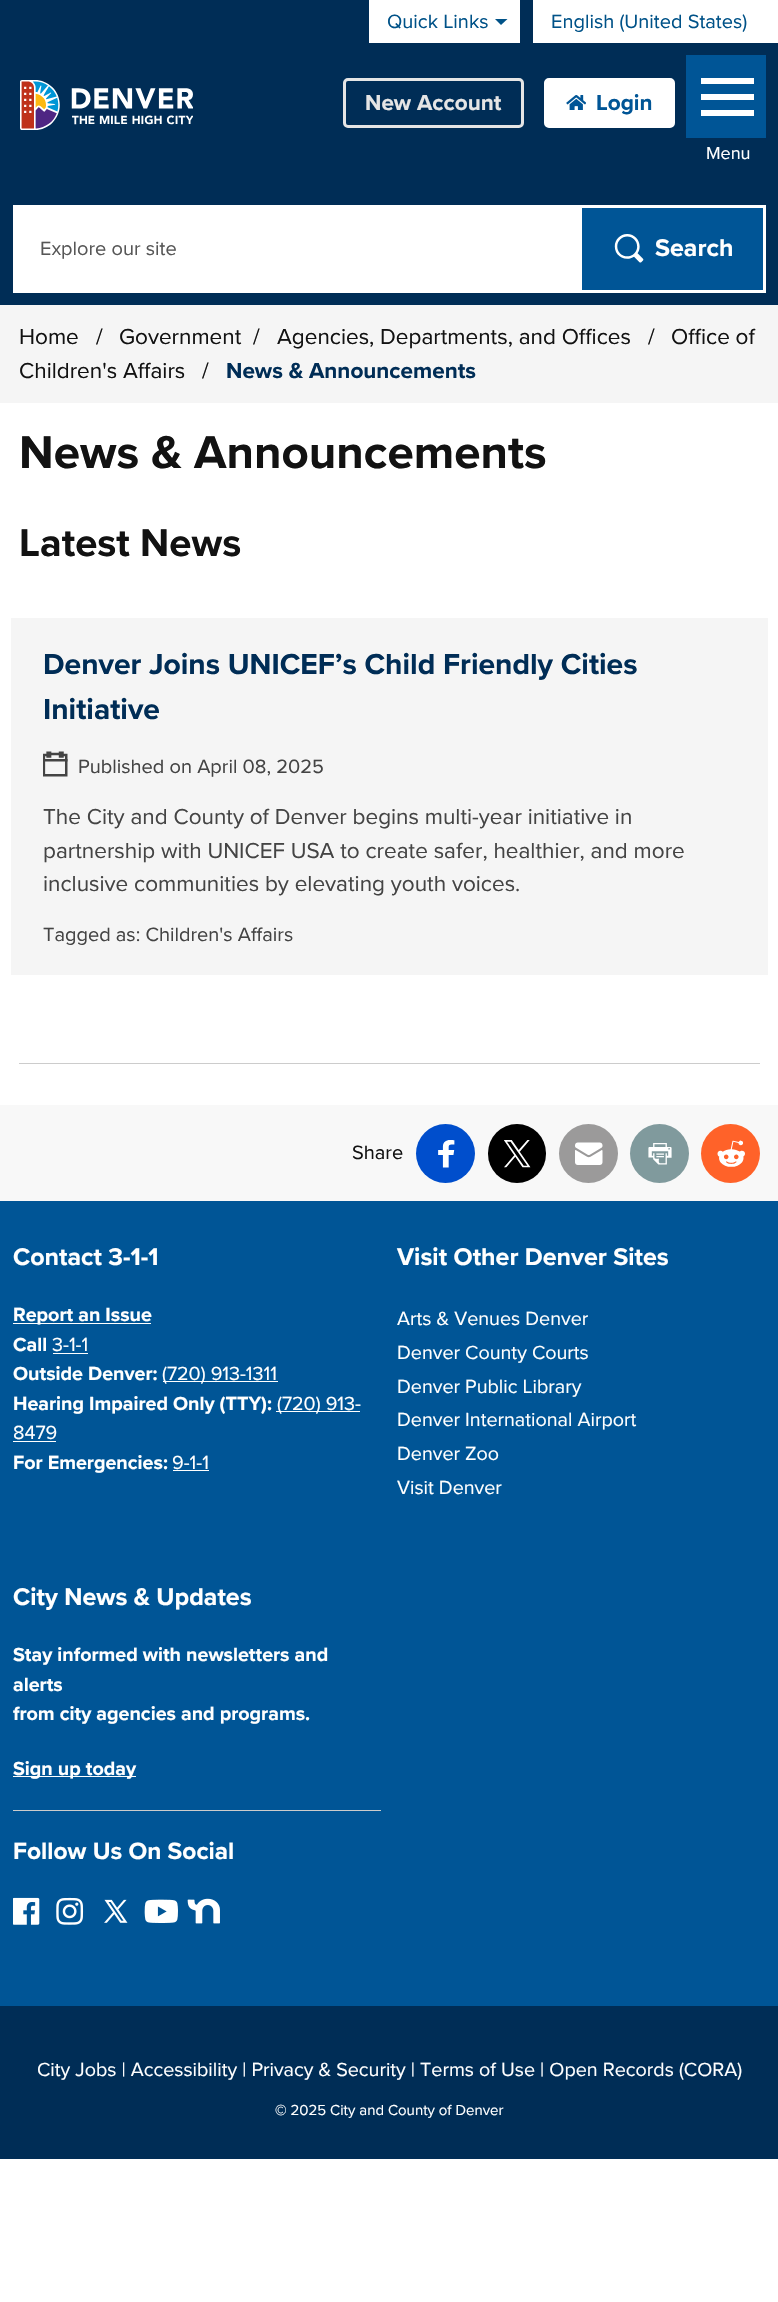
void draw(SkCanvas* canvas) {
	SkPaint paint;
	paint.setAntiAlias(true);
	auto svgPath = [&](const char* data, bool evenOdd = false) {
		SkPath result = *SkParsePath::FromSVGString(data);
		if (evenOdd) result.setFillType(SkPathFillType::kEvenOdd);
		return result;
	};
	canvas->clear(0xffffffff);
	paint.setColor(0xff002d56);
	canvas->drawRect(SkRect::MakeXYWH(0, 0, 533, 43), paint);
	paint.setColor(0xffffffff);
	canvas->drawRect(SkRect::MakeXYWH(369, 0, 151, 43), paint);
	SkFont f1(fontMgr->matchFamilyStyle("Proxima Nova", SkFontStyle::Normal()), 20);
	f1.setSubpixel(true);
	paint.setColor(0xff005288);
	canvas->drawString("Quick Links", 387, 28, f1, paint);
	canvas->drawPath(svgPath("M495 19H507.5L501 25Z"), paint);
	canvas->drawString("English (United States)", 551, 28, f1, paint);
	paint.setColor(0xff002d56);
	canvas->drawRect(SkRect::MakeXYWH(0, 43, 778, 262), paint);
	canvas->drawImageRect(SkImages::DeferredFromEncodedData(SkData::MakeFromFileName("img1.png")), SkRect::MakeXYWH(20, 80, 173, 50), SkSamplingOptions());
	paint.setStroke(true);
	paint.setStrokeWidth(3);
	paint.setColor(0xffe5e5e5);
	canvas->drawRoundRect(SkRect::MakeXYWH(344.5, 79.5, 178, 47), 3.5, 3.5, paint);
	SkFont f2(fontMgr->matchFamilyStyle("Proxima Nova", SkFontStyle::Bold()), 22.5);
	f2.setSubpixel(true);
	paint.setStroke(false);
	canvas->drawString("New Account", 365, 110, f2, paint);
	paint.setColor(0xffffffff);
	canvas->drawRoundRect(SkRect::MakeXYWH(545.5, 79.5, 128, 47), 3.5, 3.5, paint);
	paint.setStroke(true);
	canvas->drawRoundRect(SkRect::MakeXYWH(545.5, 79.5, 128, 47), 3.5, 3.5, paint);
	canvas->drawImageRect(SkImages::DeferredFromEncodedData(SkData::MakeFromFileName("img2.png")), SkRect::MakeXYWH(566, 95, 20, 15), SkSamplingOptions());
	paint.setStroke(false);
	paint.setColor(0xff005596);
	canvas->drawString("Login", 596, 110, f2, paint);
	canvas->drawRect(SkRect::MakeXYWH(686, 55, 80, 83), paint);
	paint.setColor(0xffffffff);
	canvas->drawRect(SkRect::MakeXYWH(701, 94, 53, 6), paint);
	canvas->drawRect(SkRect::MakeXYWH(701, 78, 53, 6), paint);
	canvas->drawRect(SkRect::MakeXYWH(701, 110, 53, 6), paint);
	SkFont f3(fontMgr->matchFamilyStyle("Proxima Nova", SkFontStyle::Normal()), 18);
	f3.setSubpixel(true);
	canvas->drawString("Menu", 706, 159, f3, paint);
	canvas->drawRect(SkRect::MakeXYWH(13, 205, 566, 88), paint);
	paint.setColor(0xff575757);
	canvas->drawString("Explore our site", 40, 255, f1, paint);
	paint.setColor(0xff005596);
	canvas->drawRect(SkRect::MakeXYWH(582, 208, 181, 82), paint);
	canvas->drawImageRect(SkImages::DeferredFromEncodedData(SkData::MakeFromFileName("img3.png")), SkRect::MakeXYWH(614, 234, 30, 29), SkSamplingOptions());
	paint.setStroke(true);
	paint.setColor(0xffffffff);
	canvas->drawRect(SkRect::MakeXYWH(580.5, 206.5, 184, 85), paint);
	SkFont f4(fontMgr->matchFamilyStyle("Proxima Nova", SkFontStyle::Bold()), 25);
	f4.setSubpixel(true);
	paint.setStroke(false);
	canvas->drawString("Search", 655, 256, f4, paint);
	paint.setColor(0xfff5f5f5);
	canvas->drawRect(SkRect::MakeXYWH(0, 305, 778, 98), paint);
	SkFont f5(fontMgr->matchFamilyStyle("Proxima Nova", SkFontStyle::Normal()), 22.5);
	f5.setSubpixel(true);
	paint.setColor(0xff121212);
	canvas->drawString("Home", 19, 344, f5, paint);
	canvas->drawString("/", 96, 344, f5, paint);
	canvas->drawString("Government", 119, 344, f5, paint);
	canvas->drawString("/", 253, 344, f5, paint);
	canvas->drawString("Agencies, Departments, and Offices", 277, 344, f5, paint);
	canvas->drawString("/", 648, 344, f5, paint);
	canvas->drawString("Office of", 671, 344, f5, paint);
	canvas->drawString("Children's Affairs", 19, 378, f5, paint);
	canvas->drawString("/", 202, 378, f5, paint);
	paint.setColor(0xff002d56);
	canvas->drawString("News & Announcements", 226, 378, f2, paint);
	SkFont f6(fontMgr->matchFamilyStyle("Proxima Nova", SkFontStyle::Bold()), 47.5);
	f6.setSubpixel(true);
	paint.setColor(0xff121212);
	canvas->drawString("News & Announcements", 19, 468, f6, paint);
	SkFont f7(fontMgr->matchFamilyStyle("Proxima Nova", SkFontStyle::Bold()), 40);
	f7.setSubpixel(true);
	canvas->drawString("Latest News", 19, 556, f7, paint);
	paint.setColor(0xfff5f5f5);
	canvas->drawRect(SkRect::MakeXYWH(11, 618, 757, 357), paint);
	SkFont f8(fontMgr->matchFamilyStyle("Proxima Nova", SkFontStyle::Bold()), 30);
	f8.setSubpixel(true);
	paint.setColor(0xff002d56);
	canvas->drawString("Denver Joins UNICEF’s Child Friendly Cities", 43, 674, f8, paint);
	canvas->drawString("Initiative", 43, 719, f8, paint);
	canvas->drawImageRect(SkImages::DeferredFromEncodedData(SkData::MakeFromFileName("img4.png")), SkRect::MakeXYWH(43, 751, 25, 26), SkSamplingOptions());
	paint.setColor(0xff444444);
	canvas->drawString("Published on April 08, 2025", 78, 773, f1, paint);
	canvas->drawString("The City and County of Denver begins multi-year initiative in", 43, 824, f5, paint);
	canvas->drawString("partnership with UNICEF USA to create safer, healthier, and more", 43, 858, f5, paint);
	canvas->drawString("inclusive communities by elevating youth voices.", 43, 891, f5, paint);
	canvas->drawString("Tagged as: Children's Affairs", 43, 941, f1, paint);
	paint.setColor(0xffcccccc);
	canvas->drawRect(SkRect::MakeXYWH(19, 1063, 741, 1), paint);
	paint.setColor(0xfff8f8f8);
	canvas->drawRect(SkRect::MakeXYWH(0, 1105, 778, 96), paint);
	paint.setColor(0xff121212);
	canvas->drawString("Share", 352, 1159, f1, paint);
	paint.setColor(0xff004ecc);
	canvas->drawCircle(445.5, 1153.5, 29.5, paint);
	canvas->drawImageRect(SkImages::DeferredFromEncodedData(SkData::MakeFromFileName("img5.png")), SkRect::MakeXYWH(438, 1140, 17, 28), SkSamplingOptions());
	paint.setColor(0xff000000);
	canvas->drawRoundRect(SkRect::MakeXYWH(488, 1124, 58, 59), 29, 29, paint);
	canvas->drawImageRect(SkImages::DeferredFromEncodedData(SkData::MakeFromFileName("img6.png")), SkRect::MakeXYWH(504, 1140, 27, 28), SkSamplingOptions());
	paint.setColor(0xff9b9a9a);
	canvas->drawCircle(588.5, 1153.5, 29.5, paint);
	canvas->drawImageRect(SkImages::DeferredFromEncodedData(SkData::MakeFromFileName("img7.png")), SkRect::MakeXYWH(575, 1142, 28, 23), SkSamplingOptions());
	paint.setColor(0xff809a9d);
	canvas->drawCircle(659.5, 1153.5, 29.5, paint);
	canvas->drawImageRect(SkImages::DeferredFromEncodedData(SkData::MakeFromFileName("img8.png")), SkRect::MakeXYWH(648, 1143, 24, 22), SkSamplingOptions());
	paint.setColor(0xffff6229);
	canvas->drawCircle(730.5, 1153.5, 29.5, paint);
	canvas->drawImageRect(SkImages::DeferredFromEncodedData(SkData::MakeFromFileName("img9.png")), SkRect::MakeXYWH(717, 1140, 28, 27), SkSamplingOptions());
	paint.setColor(0xff005596);
	canvas->drawRect(SkRect::MakeXYWH(0, 1201, 778, 805), paint);
	paint.setColor(0xffffffff);
	canvas->drawString("Contact 3-1-1", 13, 1265, f4, paint);
	canvas->drawRect(SkRect::MakeXYWH(13, 1323, 138, 1), paint);
	SkFont f9(fontMgr->matchFamilyStyle("Proxima Nova", SkFontStyle::Bold()), 19.7);
	f9.setSubpixel(true);
	canvas->drawString("Report an Issue", 13, 1321, f9, paint);
	canvas->drawString("Call", 13, 1351, f9, paint);
	SkFont f10(fontMgr->matchFamilyStyle("Proxima Nova", SkFontStyle::Normal()), 19.7);
	f10.setSubpixel(true);
	canvas->drawString("3-1-1", 52, 1351, f10, paint);
	canvas->drawRect(SkRect::MakeXYWH(53, 1353, 35, 1), paint);
	canvas->drawString("Outside Denver:", 13, 1380, f9, paint);
	canvas->drawRect(SkRect::MakeXYWH(163, 1381, 115, 1), paint);
	canvas->drawString("(720) 913-1311", 162, 1380, f10, paint);
	canvas->drawString("Hearing Impaired Only (TTY):", 13, 1410, f9, paint);
	canvas->drawRect(SkRect::MakeXYWH(276, 1411, 84, 1), paint);
	canvas->drawString("(720) 913-", 277, 1410, f10, paint);
	canvas->drawString("8479", 13, 1439, f10, paint);
	canvas->drawRect(SkRect::MakeXYWH(13, 1441, 43, 1), paint);
	canvas->drawString("For Emergencies:", 13, 1469, f9, paint);
	canvas->drawString("9-1-1", 172, 1469, f10, paint);
	canvas->drawRect(SkRect::MakeXYWH(173, 1470, 36, 1), paint);
	canvas->drawString("Visit Other Denver Sites", 397, 1265, f4, paint);
	canvas->drawString("Arts & Venues Denver", 397, 1325, f10, paint);
	canvas->drawString("Denver County Courts", 397, 1359, f10, paint);
	canvas->drawString("Denver Public Library", 397, 1393, f10, paint);
	canvas->drawString("Denver International Airport", 397, 1426, f10, paint);
	canvas->drawString("Denver Zoo", 397, 1460, f10, paint);
	canvas->drawString("Visit Denver", 397, 1494, f10, paint);
	canvas->drawString("City News & Updates", 13, 1605, f4, paint);
	canvas->drawString("Stay informed with newsletters and", 13, 1661, f9, paint);
	canvas->drawString("alerts", 13, 1691, f9, paint);
	canvas->save();
	canvas->clipRect(SkRect::MakeXYWH(13, 1214, 753, 780));
	canvas->drawString("from city agencies and programs.", 13, 1720, f9, paint);
	canvas->restore();
	canvas->drawRect(SkRect::MakeXYWH(13, 1776, 123, 1), paint);
	canvas->drawString("Sign up today", 13, 1775, f9, paint);
	paint.setColor(0xffcccccc);
	canvas->drawRect(SkRect::MakeXYWH(13, 1810, 368, 1), paint);
	SkFont f11(fontMgr->matchFamilyStyle("Proxima Nova", SkFontStyle::Bold()), 24.5);
	f11.setSubpixel(true);
	paint.setColor(0xffffffff);
	canvas->drawString("Follow Us On Social", 13, 1859, f11, paint);
	canvas->drawImageRect(SkImages::DeferredFromEncodedData(SkData::MakeFromFileName("img10.png")), SkRect::MakeXYWH(13, 1897, 27, 28), SkSamplingOptions());
	canvas->drawImageRect(SkImages::DeferredFromEncodedData(SkData::MakeFromFileName("img11.png")), SkRect::MakeXYWH(56, 1897, 28, 28), SkSamplingOptions());
	canvas->drawImageRect(SkImages::DeferredFromEncodedData(SkData::MakeFromFileName("img12.png")), SkRect::MakeXYWH(104, 1899, 24, 24), SkSamplingOptions());
	canvas->drawImageRect(SkImages::DeferredFromEncodedData(SkData::MakeFromFileName("img13.png")), SkRect::MakeXYWH(144, 1899, 34, 24), SkSamplingOptions());
	canvas->drawImageRect(SkImages::DeferredFromEncodedData(SkData::MakeFromFileName("img14.png")), SkRect::MakeXYWH(187, 1898, 33, 26), SkSamplingOptions());
	paint.setColor(0xff002d56);
	canvas->drawRect(SkRect::MakeXYWH(0, 2006, 778, 153), paint);
	paint.setColor(0xffffffff);
	canvas->drawString("City Jobs | Accessibility | Privacy & Security | Terms of Use | Open Records (CORA)", 37, 2076, f10, paint);
	SkFont f12(fontMgr->matchFamilyStyle("Proxima Nova", SkFontStyle::Normal()), 15);
	f12.setSubpixel(true);
	canvas->drawString("© 2025 City and County of Denver", 275, 2115, f12, paint);
}
